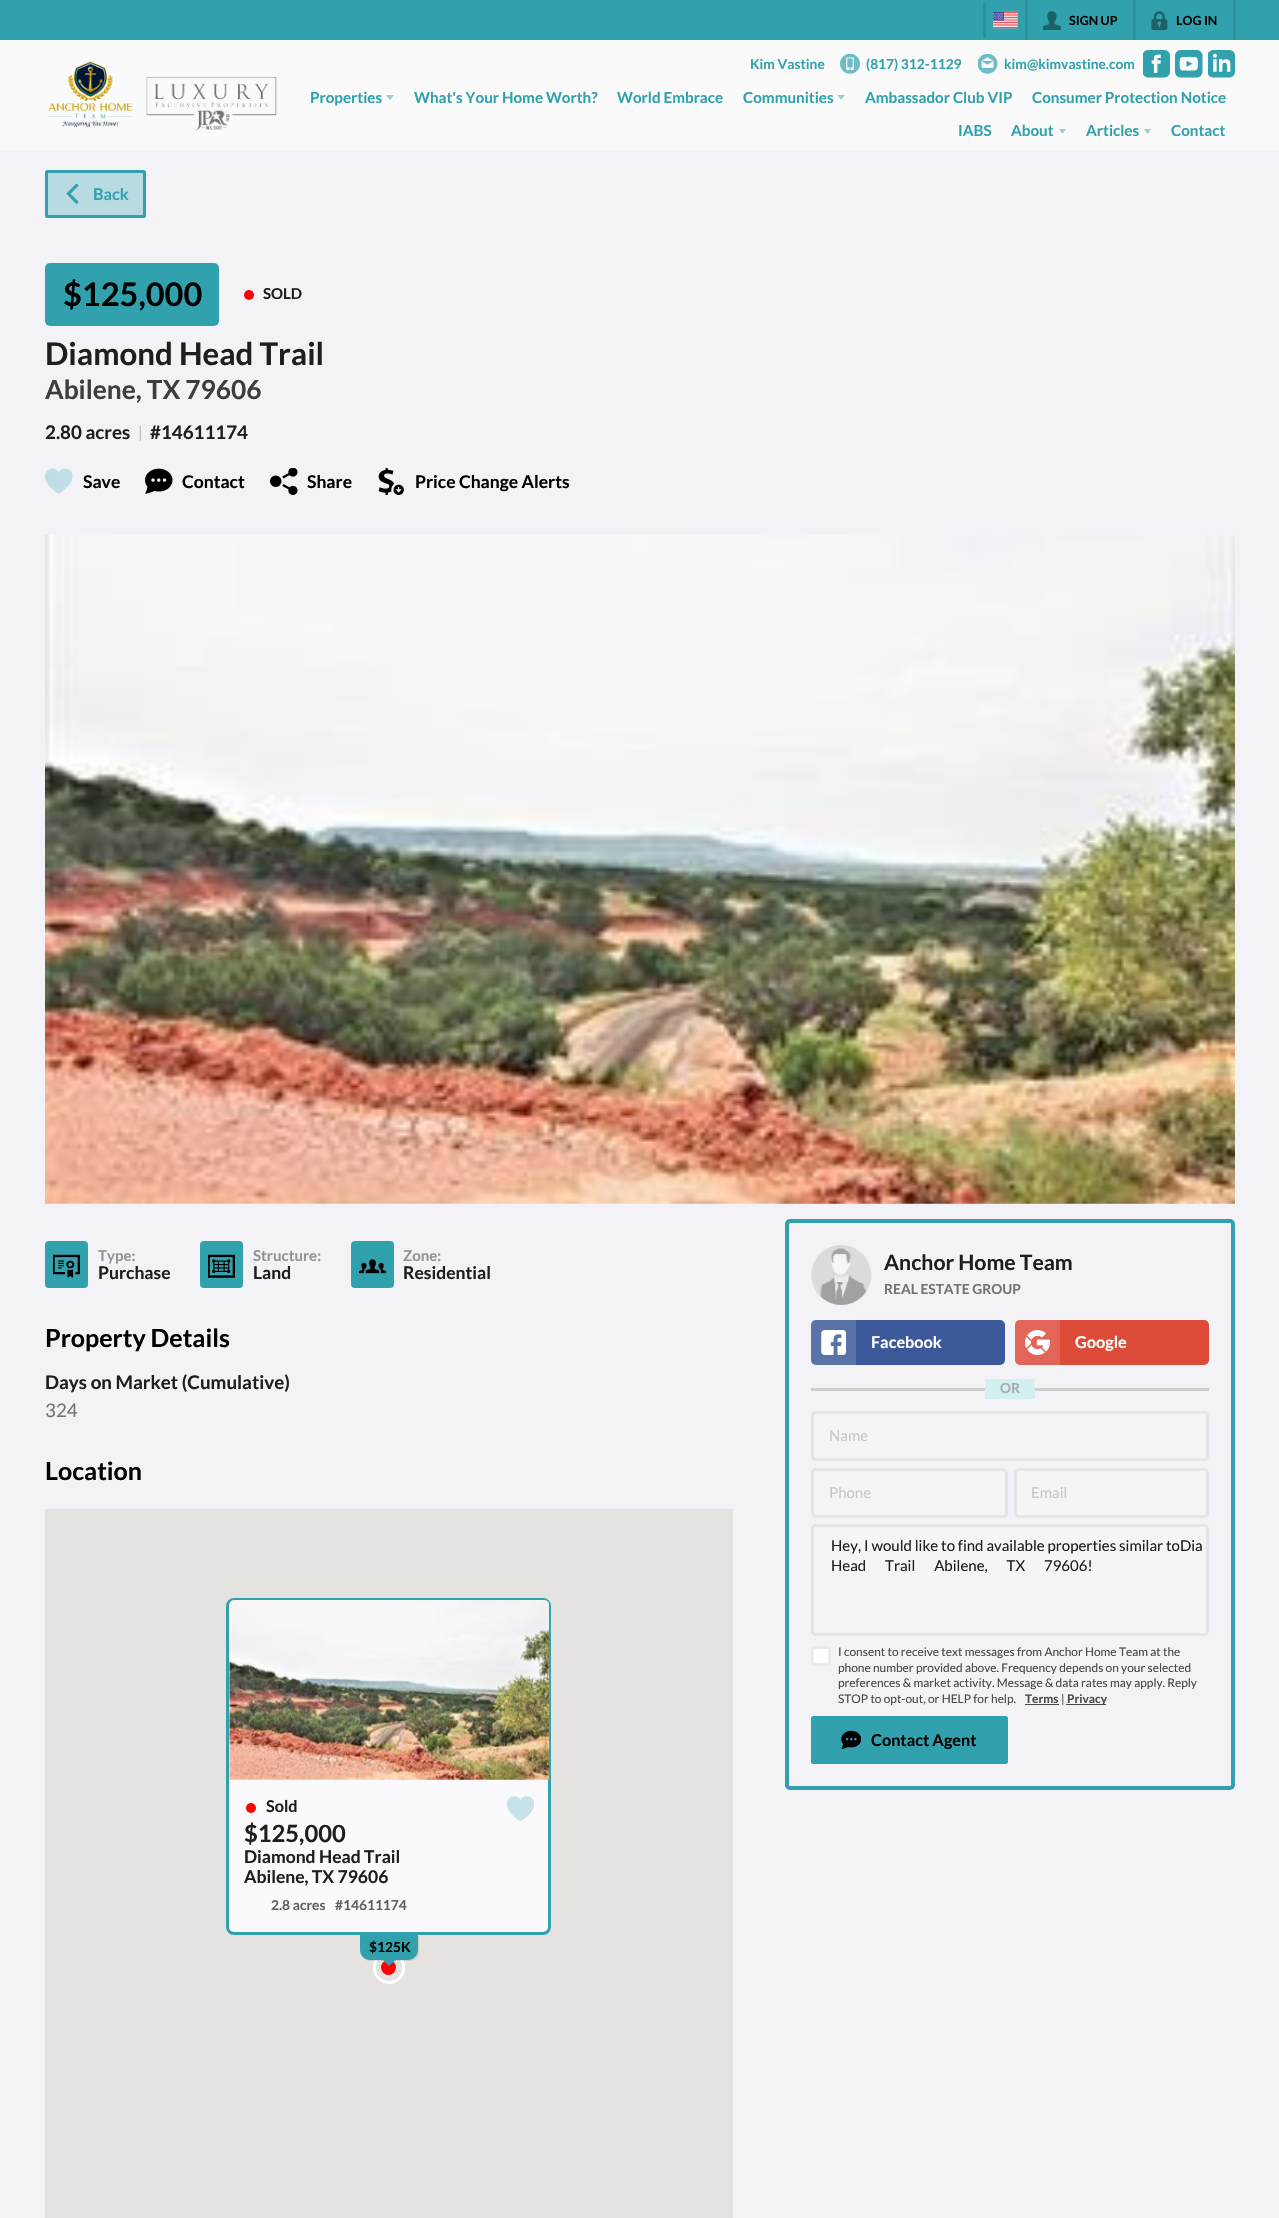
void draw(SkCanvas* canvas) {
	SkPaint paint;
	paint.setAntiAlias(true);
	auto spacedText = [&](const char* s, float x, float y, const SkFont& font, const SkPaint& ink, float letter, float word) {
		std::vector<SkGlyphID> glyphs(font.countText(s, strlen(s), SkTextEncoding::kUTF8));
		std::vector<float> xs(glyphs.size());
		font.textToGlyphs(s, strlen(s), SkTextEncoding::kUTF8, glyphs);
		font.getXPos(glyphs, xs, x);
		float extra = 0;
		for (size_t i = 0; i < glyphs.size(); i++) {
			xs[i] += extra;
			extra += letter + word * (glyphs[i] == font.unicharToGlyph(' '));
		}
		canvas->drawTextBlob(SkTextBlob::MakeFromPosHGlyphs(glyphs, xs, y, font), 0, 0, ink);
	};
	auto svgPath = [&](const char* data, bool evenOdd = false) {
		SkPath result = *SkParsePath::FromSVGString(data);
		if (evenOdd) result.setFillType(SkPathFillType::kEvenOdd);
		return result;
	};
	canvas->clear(0xfff2f2f7);
	paint.setColor(0xff31a1ae);
	canvas->drawRect(SkRect::MakeXYWH(0, 0, 1279, 40), paint);
	paint.setColor(0xff2c919d);
	canvas->drawRect(SkRect::MakeXYWH(983, 3, 3, 35), paint);
	canvas->drawImageRect(SkImages::DeferredFromEncodedData(SkData::MakeFromFileName("img1.png")), SkRect::MakeXYWH(993, 11, 25, 18), SkSamplingOptions());
	canvas->drawRect(SkRect::MakeXYWH(1233, 0, 3, 40), paint);
	canvas->drawRect(SkRect::MakeXYWH(1025, 0, 3, 40), paint);
	canvas->drawImageRect(SkImages::DeferredFromEncodedData(SkData::MakeFromFileName("img2.png")), SkRect::MakeXYWH(1043, 11, 18, 19), SkSamplingOptions());
	SkFont f1(fontMgr->matchFamilyStyle("Lato", SkFontStyle::Bold()), 12.5);
	f1.setSubpixel(true);
	paint.setColor(0xff000000);
	canvas->drawString("SIGN UP", 1069, 25, f1, paint);
	paint.setColor(0xff2c919d);
	canvas->drawRect(SkRect::MakeXYWH(1133, 0, 3, 40), paint);
	canvas->drawImageRect(SkImages::DeferredFromEncodedData(SkData::MakeFromFileName("img3.png")), SkRect::MakeXYWH(1151, 11, 17, 19), SkSamplingOptions());
	paint.setColor(0xff000000);
	canvas->drawString("LOG IN", 1176, 25, f1, paint);
	paint.setColor(0xfffafafa);
	canvas->drawRect(SkRect::MakeXYWH(0, 40, 1279, 110), paint);
	canvas->drawImageRect(SkImages::DeferredFromEncodedData(SkData::MakeFromFileName("img4.png")), SkRect::MakeXYWH(48, 61, 229, 70), SkSamplingOptions());
	SkFont f2(fontMgr->matchFamilyStyle("Lato", SkFontStyle::Bold()), 13.75);
	f2.setSubpixel(true);
	paint.setColor(0xff31a1ae);
	canvas->drawString("Kim Vastine", 750, 69, f2, paint);
	canvas->drawImageRect(SkImages::DeferredFromEncodedData(SkData::MakeFromFileName("img5.png")), SkRect::MakeXYWH(840, 54, 20, 20), SkSamplingOptions());
	canvas->drawString("(817) 312-1129", 866, 69, f2, paint);
	canvas->drawImageRect(SkImages::DeferredFromEncodedData(SkData::MakeFromFileName("img6.png")), SkRect::MakeXYWH(978, 54, 20, 20), SkSamplingOptions());
	canvas->drawString("kim@kimvastine.com", 1004, 69, f2, paint);
	canvas->drawImageRect(SkImages::DeferredFromEncodedData(SkData::MakeFromFileName("img7.png")), SkRect::MakeXYWH(1143, 50, 27, 28), SkSamplingOptions());
	canvas->drawImageRect(SkImages::DeferredFromEncodedData(SkData::MakeFromFileName("img8.png")), SkRect::MakeXYWH(1175, 50, 28, 28), SkSamplingOptions());
	canvas->drawImageRect(SkImages::DeferredFromEncodedData(SkData::MakeFromFileName("img9.png")), SkRect::MakeXYWH(1208, 50, 27, 28), SkSamplingOptions());
	SkFont f3(fontMgr->matchFamilyStyle("Lato", SkFontStyle::Bold()), 15.2);
	f3.setSubpixel(true);
	canvas->drawString("Properties", 310, 103, f3, paint);
	paint.setColor(0xff96ced4);
	canvas->drawPath(svgPath("M386 95H394L390 100Z"), paint);
	paint.setColor(0xff31a1ae);
	canvas->drawString("What's Your Home Worth?", 414, 103, f3, paint);
	canvas->drawString("World Embrace", 617, 103, f3, paint);
	canvas->drawString("Communities", 743, 103, f3, paint);
	paint.setColor(0xff96ced4);
	canvas->drawPath(svgPath("M837.5 95H845L841 100Z"), paint);
	paint.setColor(0xff31a1ae);
	canvas->drawString("Ambassador Club VIP", 865, 103, f3, paint);
	canvas->drawString("Consumer Protection Notice", 1032, 103, f3, paint);
	canvas->drawString("IABS", 958, 136, f3, paint);
	canvas->drawString("About", 1011, 136, f3, paint);
	paint.setColor(0xff96ced4);
	canvas->drawPath(svgPath("M1059 129H1066L1062.5 134Z"), paint);
	paint.setColor(0xff31a1ae);
	canvas->drawString("Articles", 1086, 136, f3, paint);
	paint.setColor(0xff96ced4);
	canvas->drawPath(svgPath("M1144 129H1151L1147.5 134Z"), paint);
	paint.setColor(0xff31a1ae);
	canvas->drawString("Contact", 1171, 136, f3, paint);
	paint.setColor(0xffb8dae1);
	canvas->drawRoundRect(SkRect::MakeXYWH(46.5, 171.5, 98, 45), 1, 1, paint);
	paint.setStroke(true);
	paint.setStrokeWidth(3);
	paint.setColor(0xff31a1ae);
	canvas->drawRoundRect(SkRect::MakeXYWH(46.5, 171.5, 98, 45), 1, 1, paint);
	canvas->drawImageRect(SkImages::DeferredFromEncodedData(SkData::MakeFromFileName("img10.png")), SkRect::MakeXYWH(66, 184, 13, 20), SkSamplingOptions());
	SkFont f4(fontMgr->matchFamilyStyle("Lato", SkFontStyle::Bold()), 16.25);
	f4.setSubpixel(true);
	paint.setStroke(false);
	canvas->drawString("Back", 93, 200, f4, paint);
	canvas->drawRoundRect(SkRect::MakeXYWH(45, 263, 174, 63), 5, 5, paint);
	SkFont f5(fontMgr->matchFamilyStyle("Lato", SkFontStyle::Bold()), 32.5);
	f5.setSubpixel(true);
	paint.setColor(0xff000000);
	canvas->drawString("$125,000", 63, 306, f5, paint);
	paint.setColor(0xffff0000);
	canvas->drawCircle(249, 295, 5, paint);
	SkFont f6(fontMgr->matchFamilyStyle("Lato", SkFontStyle::Bold()), 15);
	f6.setSubpixel(true);
	paint.setColor(0xff1e1e1e);
	canvas->drawString("SOLD", 263, 299, f6, paint);
	SkFont f7(fontMgr->matchFamilyStyle("Lato", SkFontStyle::Bold()), 31.25);
	f7.setSubpixel(true);
	canvas->drawString("Diamond Head Trail", 45, 365, f7, paint);
	SkFont f8(fontMgr->matchFamilyStyle("Lato", SkFontStyle::Bold()), 26.25);
	f8.setSubpixel(true);
	paint.setColor(0xff3d3d3e);
	canvas->drawString("Abilene, TX 79606", 45, 399, f8, paint);
	SkFont f9(fontMgr->matchFamilyStyle("Lato", SkFontStyle::Bold()), 18.75);
	f9.setSubpixel(true);
	paint.setColor(0xff1e1e1e);
	canvas->drawString("2.80 acres", 45, 439, f9, paint);
	SkFont f10(fontMgr->matchFamilyStyle("Lato", SkFontStyle::Normal()), 16);
	f10.setSubpixel(true);
	paint.setColor(0xffbdbdc1);
	canvas->drawString("|", 138, 438, f10, paint);
	paint.setColor(0xff1e1e1e);
	canvas->drawString("#14611174", 150, 439, f9, paint);
	canvas->drawImageRect(SkImages::DeferredFromEncodedData(SkData::MakeFromFileName("img11.png")), SkRect::MakeXYWH(45, 468, 28, 26), SkSamplingOptions());
	SkFont f11(fontMgr->matchFamilyStyle("Lato", SkFontStyle::Bold()), 17.5);
	f11.setSubpixel(true);
	paint.setColor(0xff000000);
	canvas->drawString("Save", 83, 488, f11, paint);
	canvas->drawImageRect(SkImages::DeferredFromEncodedData(SkData::MakeFromFileName("img12.png")), SkRect::MakeXYWH(145, 468, 28, 26), SkSamplingOptions());
	canvas->drawString("Contact", 182, 488, f11, paint);
	canvas->drawImageRect(SkImages::DeferredFromEncodedData(SkData::MakeFromFileName("img13.png")), SkRect::MakeXYWH(270, 468, 28, 27), SkSamplingOptions());
	canvas->drawString("Share", 307, 488, f11, paint);
	canvas->drawImageRect(SkImages::DeferredFromEncodedData(SkData::MakeFromFileName("img14.png")), SkRect::MakeXYWH(378, 468, 26, 27), SkSamplingOptions());
	canvas->drawString("Price Change Alerts", 415, 488, f11, paint);
	canvas->drawImageRect(SkImages::DeferredFromEncodedData(SkData::MakeFromFileName("img15.png")), SkRect::MakeXYWH(45, 535, 1190, 669), SkSamplingOptions());
	paint.setColor(0xff31a1ae);
	canvas->drawRoundRect(SkRect::MakeXYWH(45, 1241, 43, 47), 4, 4, paint);
	canvas->drawImageRect(SkImages::DeferredFromEncodedData(SkData::MakeFromFileName("img16.png")), SkRect::MakeXYWH(53, 1254, 27, 24), SkSamplingOptions());
	paint.setColor(0xff939395);
	canvas->drawString("Type:", 98, 1261, f6, paint);
	paint.setColor(0xff1e1e1e);
	canvas->drawString("Purchase", 98, 1279, f11, paint);
	paint.setColor(0xff31a1ae);
	canvas->drawRoundRect(SkRect::MakeXYWH(200, 1241, 43, 47), 4, 4, paint);
	canvas->drawImageRect(SkImages::DeferredFromEncodedData(SkData::MakeFromFileName("img17.png")), SkRect::MakeXYWH(208, 1254, 27, 24), SkSamplingOptions());
	paint.setColor(0xff939395);
	canvas->drawString("Structure:", 253, 1261, f6, paint);
	paint.setColor(0xff1e1e1e);
	canvas->drawString("Land", 253, 1279, f11, paint);
	paint.setColor(0xff31a1ae);
	canvas->drawRoundRect(SkRect::MakeXYWH(351, 1241, 43, 47), 4, 4, paint);
	canvas->drawImageRect(SkImages::DeferredFromEncodedData(SkData::MakeFromFileName("img18.png")), SkRect::MakeXYWH(359, 1259, 27, 15), SkSamplingOptions());
	paint.setColor(0xff939395);
	canvas->drawString("Zone:", 403, 1261, f6, paint);
	paint.setColor(0xff1e1e1e);
	canvas->drawString("Residential", 403, 1279, f11, paint);
	SkFont f12(fontMgr->matchFamilyStyle("Lato", SkFontStyle::Bold()), 25);
	f12.setSubpixel(true);
	paint.setColor(0xff000000);
	canvas->drawString("Property Details", 45, 1347, f12, paint);
	paint.setColor(0xff1e1e1e);
	canvas->drawString("Days on Market (Cumulative)", 45, 1389, f9, paint);
	SkFont f13(fontMgr->matchFamilyStyle("Lato", SkFontStyle::Normal()), 18.75);
	f13.setSubpixel(true);
	paint.setColor(0xff737375);
	canvas->drawString("324", 45, 1417, f13, paint);
	paint.setColor(0xff000000);
	canvas->drawString("Location", 45, 1480, f12, paint);
	paint.setColor(0xffe5e3df);
	canvas->drawRect(SkRect::MakeXYWH(45, 1509, 688, 709), paint);
	paint.setColor(0xfffafafc);
	canvas->drawRoundRect(SkRect::MakeXYWH(227.5, 1599.5, 322, 334), 6.5, 6.5, paint);
	paint.setStroke(true);
	paint.setColor(0xff31a1ae);
	canvas->drawRoundRect(SkRect::MakeXYWH(227.5, 1599.5, 322, 334), 6.5, 6.5, paint);
	canvas->drawImageRect(SkImages::DeferredFromEncodedData(SkData::MakeFromFileName("img19.png")), SkRect::MakeXYWH(229, 1600, 321, 180), SkSamplingOptions());
	paint.setStroke(false);
	paint.setColor(0xffff0000);
	canvas->drawCircle(251, 1808, 5, paint);
	paint.setColor(0xff1e1e1e);
	canvas->drawString("Sold", 266, 1812, f4, paint);
	SkFont f14(fontMgr->matchFamilyStyle("Lato", SkFontStyle::Bold()), 23.75);
	f14.setSubpixel(true);
	canvas->drawString("$125,000", 244, 1842, f14, paint);
	canvas->drawString("Diamond Head Trail", 244, 1863, f11, paint);
	canvas->drawString("Abilene, TX 79606", 244, 1883, f11, paint);
	canvas->drawImageRect(SkImages::DeferredFromEncodedData(SkData::MakeFromFileName("img20.png")), SkRect::MakeXYWH(506, 1796, 28, 26), SkSamplingOptions());
	paint.setColor(0xff606061);
	canvas->drawString("2.8 acres", 271, 1910, f2, paint);
	canvas->drawString("#14611174", 335, 1910, f2, paint);
	paint.setColor(0xffff0000);
	canvas->drawCircle(388.5, 1967.5, 7.5, paint);
	paint.setStroke(true);
	paint.setColor(0xffffffff);
	canvas->drawRoundRect(SkRect::MakeXYWH(374.5, 1952.5, 29, 30), 14.5, 14.5, paint);
	paint.setStroke(false);
	paint.setColor(0x1a000000);
	canvas->drawPath(svgPath("M362 1955C363 1959 367 1961 371 1961H409C415 1961 419 1957 419 1951V1936H418V1950C418 1956 414 1960 408 1960H370C367 1960 364 1958 362 1955Z"), paint);
	paint.setColor(0xff31a1ae);
	canvas->drawPath(svgPath("M360 1935H418V1950C418 1955.5 413.5 1960 408 1960H370C364.5 1960 360 1955.5 360 1950Z"), paint);
	paint.setColor(0xff000000);
	canvas->drawString("$125K", 369, 1952, f2, paint);
	paint.setColor(0xff31a1ae);
	canvas->drawPath(svgPath("M383 1960H395.5L389 1966Z"), paint);
	paint.setStroke(true);
	paint.setStrokeWidth(4);
	canvas->drawRoundRect(SkRect::MakeXYWH(787, 1221, 446, 567), 3, 3, paint);
	canvas->drawImageRect(SkImages::DeferredFromEncodedData(SkData::MakeFromFileName("img21.png")), SkRect::MakeXYWH(811, 1245, 61, 60), SkSamplingOptions());
	SkFont f15(fontMgr->matchFamilyStyle("Lato", SkFontStyle::Bold()), 21.25);
	f15.setSubpixel(true);
	paint.setStroke(false);
	paint.setColor(0xff1e1e1e);
	canvas->drawString("Anchor Home Team", 884, 1270, f15, paint);
	paint.setColor(0xff737375);
	canvas->drawString("REAL ESTATE GROUP", 884, 1294, f2, paint);
	paint.setColor(0xff3b5998);
	canvas->drawRoundRect(SkRect::MakeXYWH(811, 1320, 194, 45), 5, 5, paint);
	paint.setColor(0x26ffffff);
	canvas->drawPath(svgPath("M816 1320H856V1365H816C813 1365 811 1363 811 1360V1325C811 1322 813 1320 816 1320Z"), paint);
	canvas->drawImageRect(SkImages::DeferredFromEncodedData(SkData::MakeFromFileName("img22.png")), SkRect::MakeXYWH(821, 1330, 25, 25), SkSamplingOptions());
	paint.setColor(0xffffffff);
	canvas->drawString("Facebook", 871, 1348, f4, paint);
	paint.setColor(0xffdd4b39);
	canvas->drawRoundRect(SkRect::MakeXYWH(1015, 1320, 194, 45), 5, 5, paint);
	paint.setColor(0x26ffffff);
	canvas->drawPath(svgPath("M1020 1320H1060V1365H1020C1017 1365 1015 1363 1015 1360V1325C1015 1322 1017 1320 1020 1320Z"), paint);
	canvas->drawImageRect(SkImages::DeferredFromEncodedData(SkData::MakeFromFileName("img23.png")), SkRect::MakeXYWH(1025, 1330, 25, 25), SkSamplingOptions());
	paint.setColor(0xffffffff);
	canvas->drawString("Google", 1075, 1348, f4, paint);
	paint.setColor(0xffceced2);
	canvas->drawRect(SkRect::MakeXYWH(811, 1388, 398, 3), paint);
	paint.setColor(0xffd2eff2);
	canvas->drawRect(SkRect::MakeXYWH(985, 1379, 50, 20), paint);
	paint.setColor(0xffaaaaaa);
	canvas->drawString("OR", 1000, 1393, f2, paint);
	paint.setColor(0xfff5f5f5);
	canvas->drawRoundRect(SkRect::MakeXYWH(812.5, 1412.5, 395, 47), 3.5, 3.5, paint);
	paint.setStroke(true);
	paint.setStrokeWidth(3);
	paint.setColor(0xffe5e5e5);
	canvas->drawRoundRect(SkRect::MakeXYWH(812.5, 1412.5, 395, 47), 3.5, 3.5, paint);
	SkFont f16(fontMgr->matchFamilyStyle("Lato", SkFontStyle::Normal()), 15);
	f16.setSubpixel(true);
	paint.setStroke(false);
	paint.setColor(0xffc8c8c8);
	canvas->drawString("Name", 829, 1441, f16, paint);
	paint.setColor(0xfff5f5f5);
	canvas->drawRoundRect(SkRect::MakeXYWH(812.5, 1469.5, 194, 47), 3.5, 3.5, paint);
	paint.setStroke(true);
	paint.setColor(0xffe5e5e5);
	canvas->drawRoundRect(SkRect::MakeXYWH(812.5, 1469.5, 194, 47), 3.5, 3.5, paint);
	paint.setStroke(false);
	paint.setColor(0xffc8c8c8);
	canvas->drawString("Phone", 829, 1498, f16, paint);
	paint.setColor(0xfff5f5f5);
	canvas->drawRoundRect(SkRect::MakeXYWH(1015.5, 1469.5, 192, 47), 3.5, 3.5, paint);
	paint.setStroke(true);
	paint.setColor(0xffe5e5e5);
	canvas->drawRoundRect(SkRect::MakeXYWH(1015.5, 1469.5, 192, 47), 3.5, 3.5, paint);
	paint.setStroke(false);
	paint.setColor(0xffc8c8c8);
	canvas->drawString("Email", 1031, 1498, f16, paint);
	paint.setColor(0xfff5f5f5);
	canvas->drawRoundRect(SkRect::MakeXYWH(812.5, 1525.5, 395, 109), 3.5, 3.5, paint);
	paint.setStroke(true);
	paint.setColor(0xffe5e5e5);
	canvas->drawRoundRect(SkRect::MakeXYWH(812.5, 1525.5, 395, 109), 3.5, 3.5, paint);
	paint.setStroke(false);
	paint.setColor(0xff1e1e1e);
	canvas->drawString("Hey, I would like to find available properties similar toDia", 831, 1551, f16, paint);
	spacedText("Head Trail Abilene, TX 79606!", 831, 1571, f16, paint, 0, 16);
	paint.setColor(0xffffffff);
	canvas->drawRoundRect(SkRect::MakeXYWH(811, 1646, 20, 20), 2.5, 2.5, paint);
	paint.setStroke(true);
	paint.setColor(0x14000000);
	canvas->drawRoundRect(SkRect::MakeXYWH(812.5, 1647.5, 17, 17), 1, 1, paint);
	SkFont f17(fontMgr->matchFamilyStyle("Lato", SkFontStyle::Normal()), 11.9);
	f17.setSubpixel(true);
	paint.setStroke(false);
	paint.setColor(0xff484849);
	canvas->drawString("I consent to receive text messages from Anchor Home Team at the", 838, 1656, f17, paint);
	canvas->drawString("phone number provided above. Frequency depends on your selected", 838, 1672, f17, paint);
	canvas->drawString("preferences & market activity. Message & data rates may apply. Reply", 838, 1687, f17, paint);
	canvas->drawString("STOP to opt-out, or HELP for help.", 838, 1703, f17, paint);
	SkFont f18(fontMgr->matchFamilyStyle("Lato", SkFontStyle::Bold()), 11.9);
	f18.setSubpixel(true);
	canvas->drawString("Terms", 1025, 1703, f18, paint);
	canvas->drawRect(SkRect::MakeXYWH(1025, 1704, 34, 1), paint);
	canvas->drawString("|", 1061, 1703, f17, paint);
	canvas->drawRect(SkRect::MakeXYWH(1066, 1704, 40, 1), paint);
	canvas->drawString("Privacy", 1067, 1703, f18, paint);
	paint.setColor(0xff31a1ae);
	canvas->drawRoundRect(SkRect::MakeXYWH(812.5, 1717.5, 194, 45), 1, 1, paint);
	paint.setStroke(true);
	canvas->drawRoundRect(SkRect::MakeXYWH(812.5, 1717.5, 194, 45), 1, 1, paint);
	canvas->drawImageRect(SkImages::DeferredFromEncodedData(SkData::MakeFromFileName("img24.png")), SkRect::MakeXYWH(841, 1730, 20, 20), SkSamplingOptions());
	paint.setStroke(false);
	paint.setColor(0xff000000);
	canvas->drawString("Contact Agent", 871, 1746, f4, paint);
}
